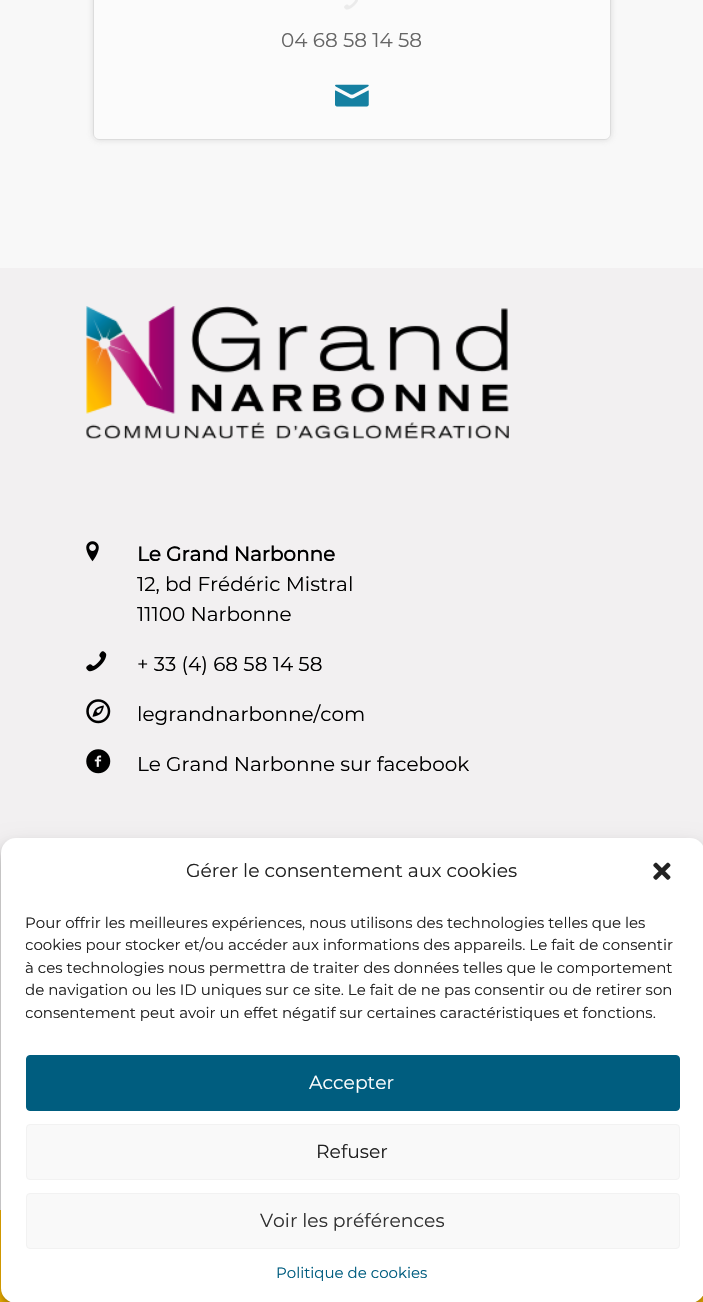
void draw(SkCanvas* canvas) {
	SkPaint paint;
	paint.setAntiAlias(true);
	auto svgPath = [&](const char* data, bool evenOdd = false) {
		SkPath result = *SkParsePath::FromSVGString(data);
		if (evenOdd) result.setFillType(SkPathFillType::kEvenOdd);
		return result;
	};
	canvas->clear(0xfff2f0f1);
	paint.setColor(0xfff8f8f8);
	canvas->drawRect(SkRect::MakeXYWH(0, 0, 703, 268), paint);
	canvas->save();
	canvas->clipPath(svgPath("M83 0H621V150H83ZM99-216H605C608.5-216 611-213.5 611-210V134C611 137.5 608.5 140 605 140H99C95.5 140 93 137.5 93 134V-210C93-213.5 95.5-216 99-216Z", true), true);
	paint.setColor(0xbfd0d0d0);
	paint.setMaskFilter(SkMaskFilter::MakeBlur(kNormal_SkBlurStyle, 3));
	canvas->drawRoundRect(SkRect::MakeXYWH(93, -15, 518, 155), 6, 6, paint);
	paint.setMaskFilter(nullptr);
	canvas->restore();
	paint.setColor(0x66ffffff);
	canvas->drawRoundRect(SkRect::MakeXYWH(93, -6, 518, 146), 6, 6, paint);
	paint.setStroke(true);
	paint.setStrokeWidth(1);
	paint.setColor(0x407e7e7e);
	canvas->drawRoundRect(SkRect::MakeXYWH(93.5, -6.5, 517, 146), 5.5, 5.5, paint);
	canvas->drawImageRect(SkImages::DeferredFromEncodedData(SkData::MakeFromFileName("img1.png")), SkRect::MakeXYWH(344, 0, 14, 10), SkSamplingOptions());
	SkFont f1(fontMgr->matchFamilyStyle("Montserrat", SkFontStyle(100, SkFontStyle::kNormal_Width, SkFontStyle::kUpright_Slant)), 20);
	f1.setSubpixel(true);
	paint.setStroke(false);
	paint.setColor(0xff666666);
	canvas->drawString("04 68 58 14 58", 281, 47, f1, paint);
	canvas->drawImageRect(SkImages::DeferredFromEncodedData(SkData::MakeFromFileName("img2.png")), SkRect::MakeXYWH(335, 84, 34, 23), SkSamplingOptions());
	canvas->drawImageRect(SkImages::DeferredFromEncodedData(SkData::MakeFromFileName("img3.png")), SkRect::MakeXYWH(86, 306, 423, 133), SkSamplingOptions());
	canvas->drawImageRect(SkImages::DeferredFromEncodedData(SkData::MakeFromFileName("img4.png")), SkRect::MakeXYWH(86, 541, 13, 21), SkSamplingOptions());
	SkFont f2(fontMgr->matchFamilyStyle("Montserrat", SkFontStyle::Bold()), 20);
	f2.setSubpixel(true);
	paint.setColor(0xff000000);
	canvas->drawString("Le Grand Narbonne", 137, 561, f2, paint);
	canvas->drawString("12, bd Frédéric Mistral", 137, 591, f1, paint);
	canvas->drawString("11100 Narbonne", 137, 621, f1, paint);
	canvas->drawImageRect(SkImages::DeferredFromEncodedData(SkData::MakeFromFileName("img5.png")), SkRect::MakeXYWH(86, 651, 21, 21), SkSamplingOptions());
	canvas->drawString("+ 33 (4) 68 58 14 58", 137, 671, f1, paint);
	canvas->drawImageRect(SkImages::DeferredFromEncodedData(SkData::MakeFromFileName("img6.png")), SkRect::MakeXYWH(86, 699, 25, 25), SkSamplingOptions());
	canvas->drawString("legrandnarbonne/com", 137, 721, f1, paint);
	canvas->drawImageRect(SkImages::DeferredFromEncodedData(SkData::MakeFromFileName("img7.png")), SkRect::MakeXYWH(86, 749, 25, 25), SkSamplingOptions());
	canvas->drawString("Le Grand Narbonne sur facebook", 137, 771, f1, paint);
	paint.setColor(0xffffbb00);
	canvas->drawRect(SkRect::MakeXYWH(0, 1210, 703, 92), paint);
	paint.setColor(0x3b000000);
	paint.setMaskFilter(SkMaskFilter::MakeBlur(kNormal_SkBlurStyle, 4));
	canvas->drawRoundRect(SkRect::MakeXYWH(1, 845, 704, 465), 15, 15, paint);
	paint.setMaskFilter(nullptr);
	paint.setColor(0x30000000);
	paint.setMaskFilter(SkMaskFilter::MakeBlur(kNormal_SkBlurStyle, 12.5));
	canvas->drawRoundRect(SkRect::MakeXYWH(1, 850, 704, 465), 15, 15, paint);
	paint.setMaskFilter(nullptr);
	paint.setColor(0xffffffff);
	canvas->drawRoundRect(SkRect::MakeXYWH(1, 838, 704, 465), 15, 15, paint);
	SkFont f3(fontMgr->matchFamilyStyle("Montserrat", SkFontStyle(100, SkFontStyle::kNormal_Width, SkFontStyle::kUpright_Slant)), 18.75);
	f3.setSubpixel(true);
	paint.setColor(0xff222222);
	canvas->drawString("Gérer le consentement aux cookies", 186, 877, f3, paint);
	canvas->drawImageRect(SkImages::DeferredFromEncodedData(SkData::MakeFromFileName("img8.png")), SkRect::MakeXYWH(653, 862, 18, 18), SkSamplingOptions());
	SkFont f4(fontMgr->matchFamilyStyle("Montserrat", SkFontStyle(100, SkFontStyle::kNormal_Width, SkFontStyle::kUpright_Slant)), 15);
	f4.setSubpixel(true);
	canvas->drawString("Pour offrir les meilleures expériences, nous utilisons des technologies telles que les", 25, 928, f4, paint);
	canvas->save();
	canvas->clipRect(SkRect::MakeXYWH(26, 911, 654, 119));
	canvas->drawString("cookies pour stocker et/ou accéder aux informations des appareils. Le fait de consentir", 25, 950, f4, paint);
	canvas->restore();
	canvas->drawString("à ces technologies nous permettra de traiter des données telles que le comportement", 25, 973, f4, paint);
	canvas->save();
	canvas->clipRect(SkRect::MakeXYWH(26, 911, 654, 119));
	canvas->drawString("de navigation ou les ID uniques sur ce site. Le fait de ne pas consentir ou de retirer son", 25, 995, f4, paint);
	canvas->drawString("consentement peut avoir un effet négatif sur certaines caractéristiques et fonctions.", 25, 1018, f4, paint);
	canvas->restore();
	paint.setColor(0xff005d7f);
	canvas->drawRoundRect(SkRect::MakeXYWH(26.5, 1055.5, 653, 55), 3.5, 3.5, paint);
	paint.setStroke(true);
	canvas->drawRoundRect(SkRect::MakeXYWH(26.5, 1055.5, 653, 55), 3.5, 3.5, paint);
	paint.setStroke(false);
	paint.setColor(0xffffffff);
	canvas->drawString("Accepter", 309, 1089, f3, paint);
	paint.setColor(0xfff9f9f9);
	canvas->drawRoundRect(SkRect::MakeXYWH(26.5, 1124.5, 653, 55), 3.5, 3.5, paint);
	paint.setStroke(true);
	paint.setColor(0xfff2f2f2);
	canvas->drawRoundRect(SkRect::MakeXYWH(26.5, 1124.5, 653, 55), 3.5, 3.5, paint);
	paint.setStroke(false);
	paint.setColor(0xff222222);
	canvas->drawString("Refuser", 316, 1158, f3, paint);
	paint.setColor(0xfff9f9f9);
	canvas->drawRoundRect(SkRect::MakeXYWH(26.5, 1193.5, 653, 55), 3.5, 3.5, paint);
	paint.setStroke(true);
	paint.setColor(0xfff2f2f2);
	canvas->drawRoundRect(SkRect::MakeXYWH(26.5, 1193.5, 653, 55), 3.5, 3.5, paint);
	paint.setStroke(false);
	paint.setColor(0xff333333);
	canvas->drawString("Voir les préférences", 260, 1227, f3, paint);
	paint.setColor(0xff005d7f);
	canvas->drawString("Politique de cookies", 276, 1278, f4, paint);
}
